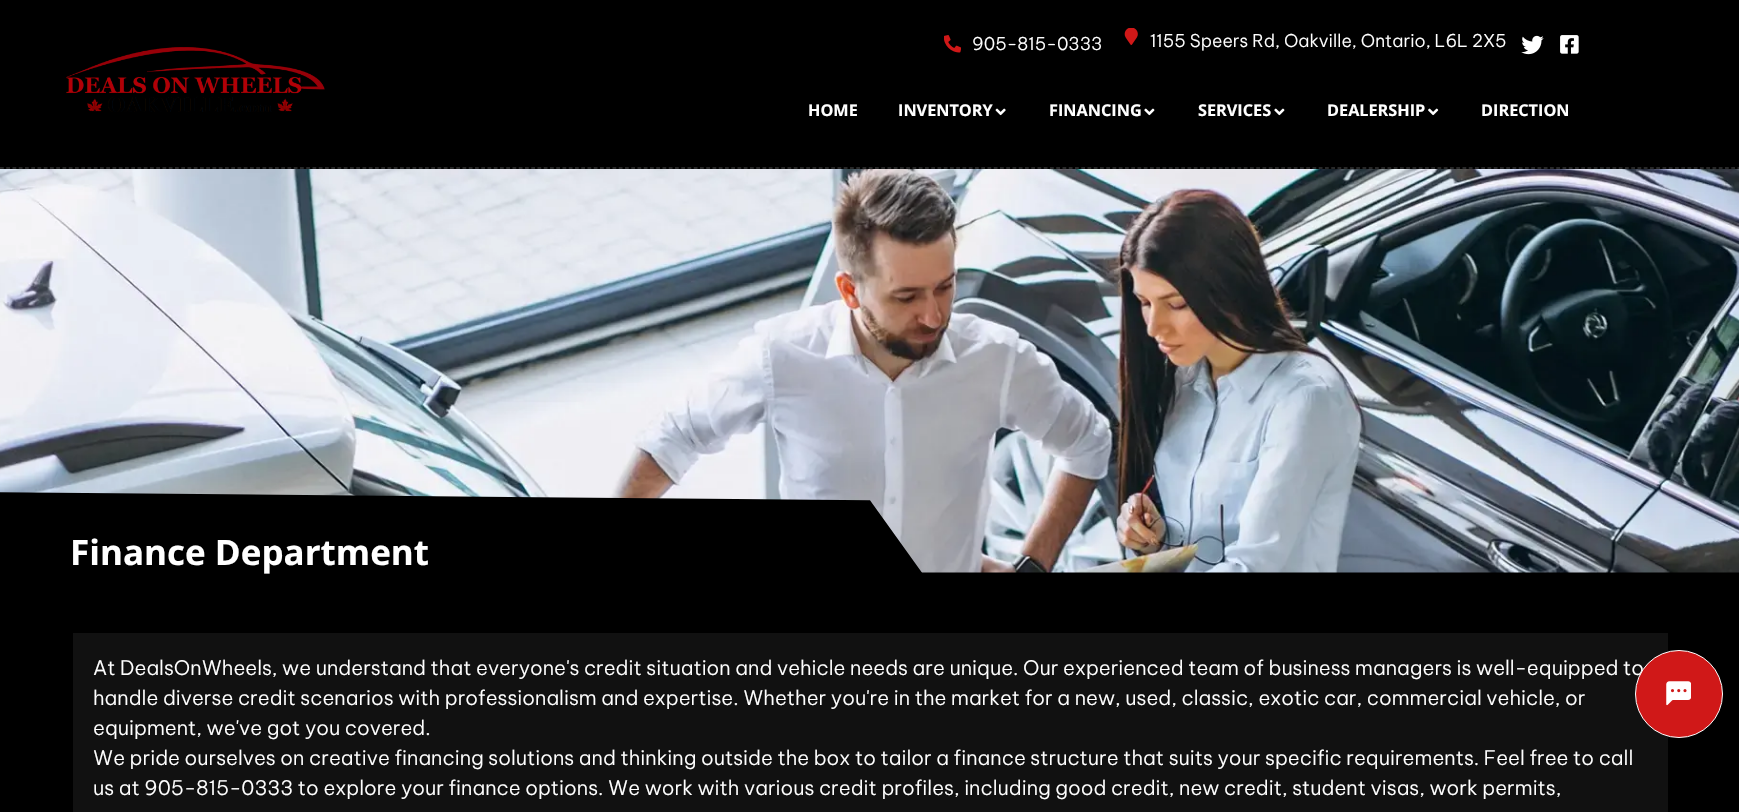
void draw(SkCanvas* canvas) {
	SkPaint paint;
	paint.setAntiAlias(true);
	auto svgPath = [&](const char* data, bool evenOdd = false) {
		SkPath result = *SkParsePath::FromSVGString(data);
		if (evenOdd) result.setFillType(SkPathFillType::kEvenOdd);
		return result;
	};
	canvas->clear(0xff000000);
	paint.setStroke(true);
	paint.setStrokeWidth(1.2);
	paint.setColor(0xff505050);
	paint.setPathEffect(SkDashPathEffect::Make({{3.75f, 2.5f}}, 0));
	canvas->drawPath(svgPath("M0 168H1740"), paint);
	paint.setPathEffect(nullptr);
	canvas->drawImageRect(SkImages::DeferredFromEncodedData(SkData::MakeFromFileName("img1.png")), SkRect::MakeXYWH(66, 47, 259, 65), SkSamplingOptions());
	canvas->drawImageRect(SkImages::DeferredFromEncodedData(SkData::MakeFromFileName("img2.png")), SkRect::MakeXYWH(944, 35, 17, 18), SkSamplingOptions());
	SkFont f1(fontMgr->matchFamilyStyle("Be Vietnam Pro", SkFontStyle(300, SkFontStyle::kNormal_Width, SkFontStyle::kUpright_Slant)), 17.5);
	f1.setSubpixel(true);
	paint.setStroke(false);
	paint.setColor(0xffffffff);
	canvas->drawString("905-815-0333", 972, 50, f1, paint);
	canvas->drawImageRect(SkImages::DeferredFromEncodedData(SkData::MakeFromFileName("img3.png")), SkRect::MakeXYWH(1124, 28, 14, 17), SkSamplingOptions());
	canvas->drawString("1155 Speers Rd, Oakville, Ontario, L6L 2X5", 1150, 47, f1, paint);
	canvas->drawImageRect(SkImages::DeferredFromEncodedData(SkData::MakeFromFileName("img4.png")), SkRect::MakeXYWH(1521, 35, 23, 20), SkSamplingOptions());
	canvas->drawImageRect(SkImages::DeferredFromEncodedData(SkData::MakeFromFileName("img5.png")), SkRect::MakeXYWH(1560, 35, 19, 19), SkSamplingOptions());
	SkFont f2(fontMgr->matchFamilyStyle("Open Sans", SkFontStyle::Bold()), 16.25);
	f2.setSubpixel(true);
	canvas->drawString("HOME", 808, 116, f2, paint);
	canvas->drawString("INVENTORY", 898, 116, f2, paint);
	canvas->drawImageRect(SkImages::DeferredFromEncodedData(SkData::MakeFromFileName("img6.png")), SkRect::MakeXYWH(995, 108, 11, 8), SkSamplingOptions());
	canvas->drawString("FINANCING", 1049, 116, f2, paint);
	canvas->drawImageRect(SkImages::DeferredFromEncodedData(SkData::MakeFromFileName("img7.png")), SkRect::MakeXYWH(1144, 108, 11, 8), SkSamplingOptions());
	canvas->drawString("SERVICES", 1198, 116, f2, paint);
	canvas->drawImageRect(SkImages::DeferredFromEncodedData(SkData::MakeFromFileName("img7.png")), SkRect::MakeXYWH(1274, 108, 11, 8), SkSamplingOptions());
	canvas->drawString("DEALERSHIP", 1327, 116, f2, paint);
	canvas->drawImageRect(SkImages::DeferredFromEncodedData(SkData::MakeFromFileName("img8.png")), SkRect::MakeXYWH(1428, 108, 11, 8), SkSamplingOptions());
	canvas->drawString("DIRECTION", 1481, 116, f2, paint);
	SkFont f3(fontMgr->matchFamilyStyle("Open Sans", SkFontStyle::Bold()), 35);
	f3.setSubpixel(true);
	canvas->drawString("Finance Department", 70, 565, f3, paint);
	canvas->drawImageRect(SkImages::DeferredFromEncodedData(SkData::MakeFromFileName("img9.png")), SkRect::MakeXYWH(0, 169, 1739, 404), SkSamplingOptions());
	paint.setColor(0xff111111);
	canvas->drawRect(SkRect::MakeXYWH(73, 633, 1595, 179), paint);
	SkFont f4(fontMgr->matchFamilyStyle("Be Vietnam Pro", SkFontStyle(300, SkFontStyle::kNormal_Width, SkFontStyle::kUpright_Slant)), 20);
	f4.setSubpixel(true);
	paint.setColor(0xffffffff);
	canvas->drawString("At DealsOnWheels, we understand that everyone's credit situation and vehicle needs are unique. Our experienced team of business managers is well-equipped to", 93, 675, f4, paint);
	canvas->drawString("handle diverse credit scenarios with professionalism and expertise. Whether you're in the market for a new, used, classic, exotic car, commercial vehicle, or", 93, 705, f4, paint);
	canvas->drawString("equipment, we've got you covered.", 93, 735, f4, paint);
	canvas->drawString("We pride ourselves on creative financing solutions and thinking outside the box to tailor a finance structure that suits your specific requirements. Feel free to call", 93, 765, f4, paint);
	canvas->drawString("us at 905-815-0333 to explore your finance options. We work with various credit profiles, including good credit, new credit, student visas, work permits,", 93, 795, f4, paint);
	paint.setColor(0xffd01818);
	canvas->drawCircle(1679, 694, 43.5, paint);
	paint.setStroke(true);
	paint.setStrokeWidth(1);
	paint.setColor(0xffffffff);
	canvas->drawCircle(1679, 694, 43.5, paint);
	canvas->drawImageRect(SkImages::DeferredFromEncodedData(SkData::MakeFromFileName("img10.png")), SkRect::MakeXYWH(1666, 681, 25, 25), SkSamplingOptions());
}
